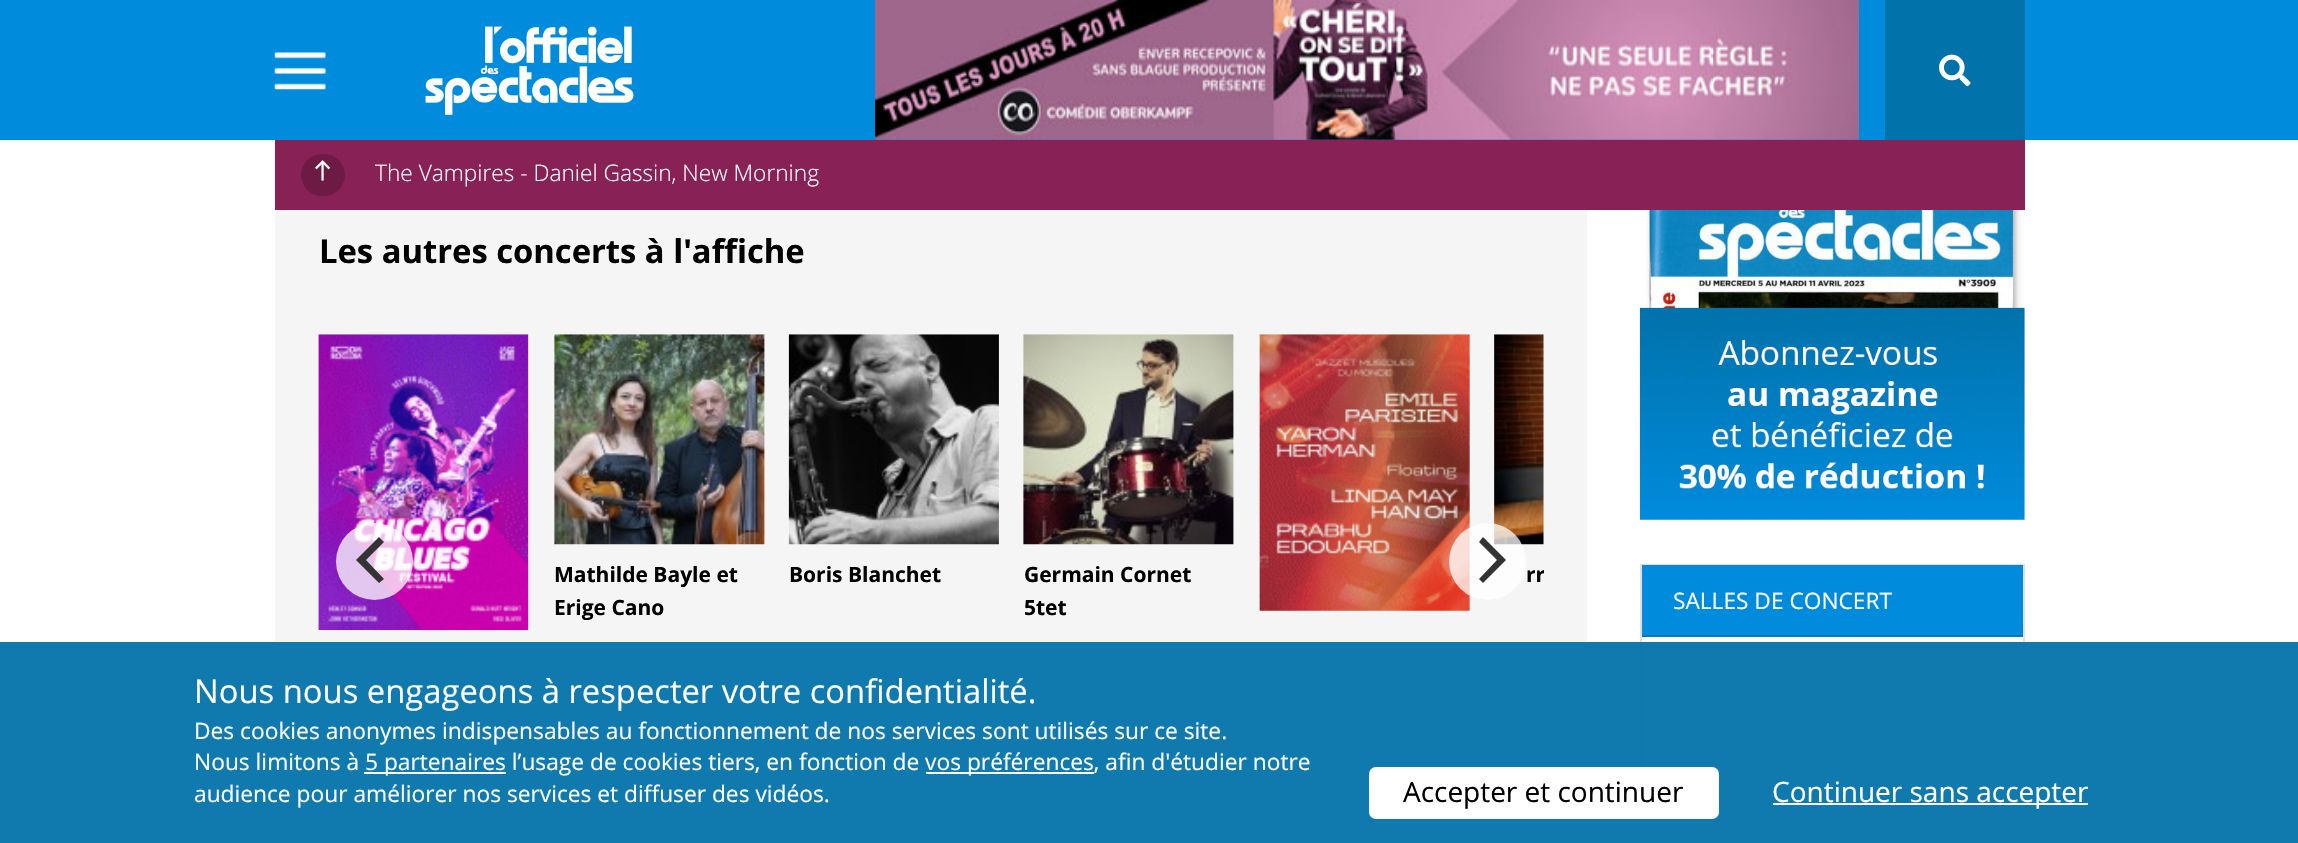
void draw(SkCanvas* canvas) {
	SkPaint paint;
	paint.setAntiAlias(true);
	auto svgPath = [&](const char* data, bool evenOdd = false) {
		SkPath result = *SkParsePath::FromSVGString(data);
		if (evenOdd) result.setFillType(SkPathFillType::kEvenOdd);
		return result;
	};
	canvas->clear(0xffffffff);
	paint.setColor(0xff008bdc);
	canvas->drawRect(SkRect::MakeXYWH(0, 0, 2298, 140), paint);
	canvas->drawImageRect(SkImages::DeferredFromEncodedData(SkData::MakeFromFileName("img1.png")), SkRect::MakeXYWH(274, 52, 52, 38), SkSamplingOptions());
	canvas->drawImageRect(SkImages::DeferredFromEncodedData(SkData::MakeFromFileName("img2.png")), SkRect::MakeXYWH(425, 26, 209, 89), SkSamplingOptions());
	canvas->drawImageRect(SkImages::DeferredFromEncodedData(SkData::MakeFromFileName("img3.png")), SkRect::MakeXYWH(875, 0, 984, 140), SkSamplingOptions());
	paint.setColor(0xff0172aa);
	canvas->drawRect(SkRect::MakeXYWH(1885, 0, 140, 140), paint);
	canvas->drawImageRect(SkImages::DeferredFromEncodedData(SkData::MakeFromFileName("img4.png")), SkRect::MakeXYWH(1939, 54, 32, 33), SkSamplingOptions());
	paint.setColor(0xff882155);
	canvas->drawRect(SkRect::MakeXYWH(275, 140, 1750, 70), paint);
	paint.setColor(0xff6d1a44);
	canvas->drawRoundRect(SkRect::MakeXYWH(301, 154, 44, 42), 21, 21, paint);
	canvas->drawImageRect(SkImages::DeferredFromEncodedData(SkData::MakeFromFileName("img5.png")), SkRect::MakeXYWH(315, 160, 15, 21), SkSamplingOptions());
	SkFont f1(fontMgr->matchFamilyStyle("Open Sans", SkFontStyle(300, SkFontStyle::kNormal_Width, SkFontStyle::kUpright_Slant)), 22.7);
	f1.setSubpixel(true);
	paint.setColor(0xffffffff);
	canvas->drawString("The Vampires - Daniel Gassin, New Morning", 375, 181, f1, paint);
	paint.setColor(0xfff5f5f5);
	canvas->drawRect(SkRect::MakeXYWH(275, 210, 1312, 633), paint);
	SkFont f2(fontMgr->matchFamilyStyle("Open Sans", SkFontStyle::Bold()), 32.75);
	f2.setSubpixel(true);
	paint.setColor(0xff000000);
	canvas->drawString("Les autres concerts à l'affiche", 319, 263, f2, paint);
	canvas->drawImageRect(SkImages::DeferredFromEncodedData(SkData::MakeFromFileName("img6.png")), SkRect::MakeXYWH(318, 334, 211, 296), SkSamplingOptions());
	paint.setColor(0xbfffffff);
	canvas->drawCircle(374.5, 561.5, 38.5, paint);
	paint.setColor(0xff333333);
	canvas->drawPath(svgPath("M356 560L379 583L384 579L366 560L384 542L379 537Z"), paint);
	canvas->drawImageRect(SkImages::DeferredFromEncodedData(SkData::MakeFromFileName("img10.png")), SkRect::MakeXYWH(1259, 334, 211, 277), SkSamplingOptions());
	canvas->drawImageRect(SkImages::DeferredFromEncodedData(SkData::MakeFromFileName("img11.png")), SkRect::MakeXYWH(1494, 334, 50, 211), SkSamplingOptions());
	paint.setColor(0xbfffffff);
	canvas->drawCircle(1487.5, 561.5, 38.5, paint);
	paint.setColor(0xff333333);
	canvas->drawPath(svgPath("M1506 560L1483 537L1479 542L1497 560L1479 579L1483 583Z"), paint);
	canvas->drawImageRect(SkImages::DeferredFromEncodedData(SkData::MakeFromFileName("img7.png")), SkRect::MakeXYWH(554, 334, 211, 211), SkSamplingOptions());
	SkFont f3(fontMgr->matchFamilyStyle("Open Sans", SkFontStyle::Bold()), 21);
	f3.setSubpixel(true);
	paint.setColor(0xff000000);
	canvas->drawString("Mathilde Bayle et", 554, 582, f3, paint);
	canvas->drawString("Erige Cano", 554, 615, f3, paint);
	canvas->drawImageRect(SkImages::DeferredFromEncodedData(SkData::MakeFromFileName("img8.png")), SkRect::MakeXYWH(788, 334, 211, 211), SkSamplingOptions());
	canvas->drawString("Boris Blanchet", 789, 582, f3, paint);
	canvas->drawImageRect(SkImages::DeferredFromEncodedData(SkData::MakeFromFileName("img9.png")), SkRect::MakeXYWH(1023, 334, 211, 211), SkSamplingOptions());
	canvas->drawString("Germain Cornet", 1024, 582, f3, paint);
	canvas->drawString("5tet", 1024, 615, f3, paint);
	canvas->save();
	canvas->clipRect(SkRect::MakeXYWH(319, 334, 1225, 455));
	canvas->drawString("rr", 1526, 582, f3, paint);
	canvas->restore();
	canvas->drawImageRect(SkImages::DeferredFromEncodedData(SkData::MakeFromFileName("img12.png")), SkRect::MakeXYWH(1639, 210, 386, 310), SkSamplingOptions());
	paint.setStroke(true);
	paint.setStrokeWidth(2);
	paint.setColor(0xffdfdfdf);
	canvas->drawRect(SkRect::MakeXYWH(1641, 565, 383, 225), paint);
	paint.setStroke(false);
	paint.setColor(0xff008bdc);
	canvas->drawRect(SkRect::MakeXYWH(1642, 565, 381, 70), paint);
	paint.setColor(0xff007ac1);
	canvas->drawRect(SkRect::MakeXYWH(1642, 635, 381, 2), paint);
	SkFont f4(fontMgr->matchFamilyStyle("Open Sans", SkFontStyle::Normal()), 22.7);
	f4.setSubpixel(true);
	paint.setColor(0xffffffff);
	canvas->drawString("SALLES DE CONCERT", 1673, 609, f4, paint);
	paint.setColor(0xf00172aa);
	canvas->drawRect(SkRect::MakeXYWH(0, 642, 2298, 201), paint);
	SkFont f5(fontMgr->matchFamilyStyle("Open Sans", SkFontStyle::Normal()), 32.75);
	f5.setSubpixel(true);
	paint.setColor(0xffffffff);
	canvas->drawString("Nous nous engageons à respecter votre confidentialité.", 194, 703, f5, paint);
	SkFont f6(fontMgr->matchFamilyStyle("Open Sans", SkFontStyle::Normal()), 22.75);
	f6.setSubpixel(true);
	canvas->drawString("Des cookies anonymes indispensables au fonctionnement de nos services sont utilisés sur ce site.", 194, 739, f6, paint);
	canvas->drawString("Nous limitons à", 194, 770, f6, paint);
	canvas->drawRect(SkRect::MakeXYWH(364, 772, 142, 2), paint);
	canvas->drawString("5 partenaires l’usage de cookies tiers, en fonction de", 365, 770, f6, paint);
	canvas->drawRect(SkRect::MakeXYWH(926, 772, 168, 2), paint);
	canvas->drawString("vos préférences, afin d'étudier notre", 925, 770, f6, paint);
	canvas->drawString("audience pour améliorer nos services et diffuser des vidéos.", 194, 802, f6, paint);
	canvas->drawRoundRect(SkRect::MakeXYWH(1369, 767, 350, 52), 7, 7, paint);
	SkFont f7(fontMgr->matchFamilyStyle("Open Sans", SkFontStyle::Normal()), 28);
	f7.setSubpixel(true);
	paint.setColor(0xff000000);
	canvas->drawString("Accepter et continuer", 1403, 802, f7, paint);
	paint.setColor(0xffffffff);
	canvas->drawRect(SkRect::MakeXYWH(1773, 803, 315, 2), paint);
	canvas->drawString("Continuer sans accepter", 1772, 802, f7, paint);
}
